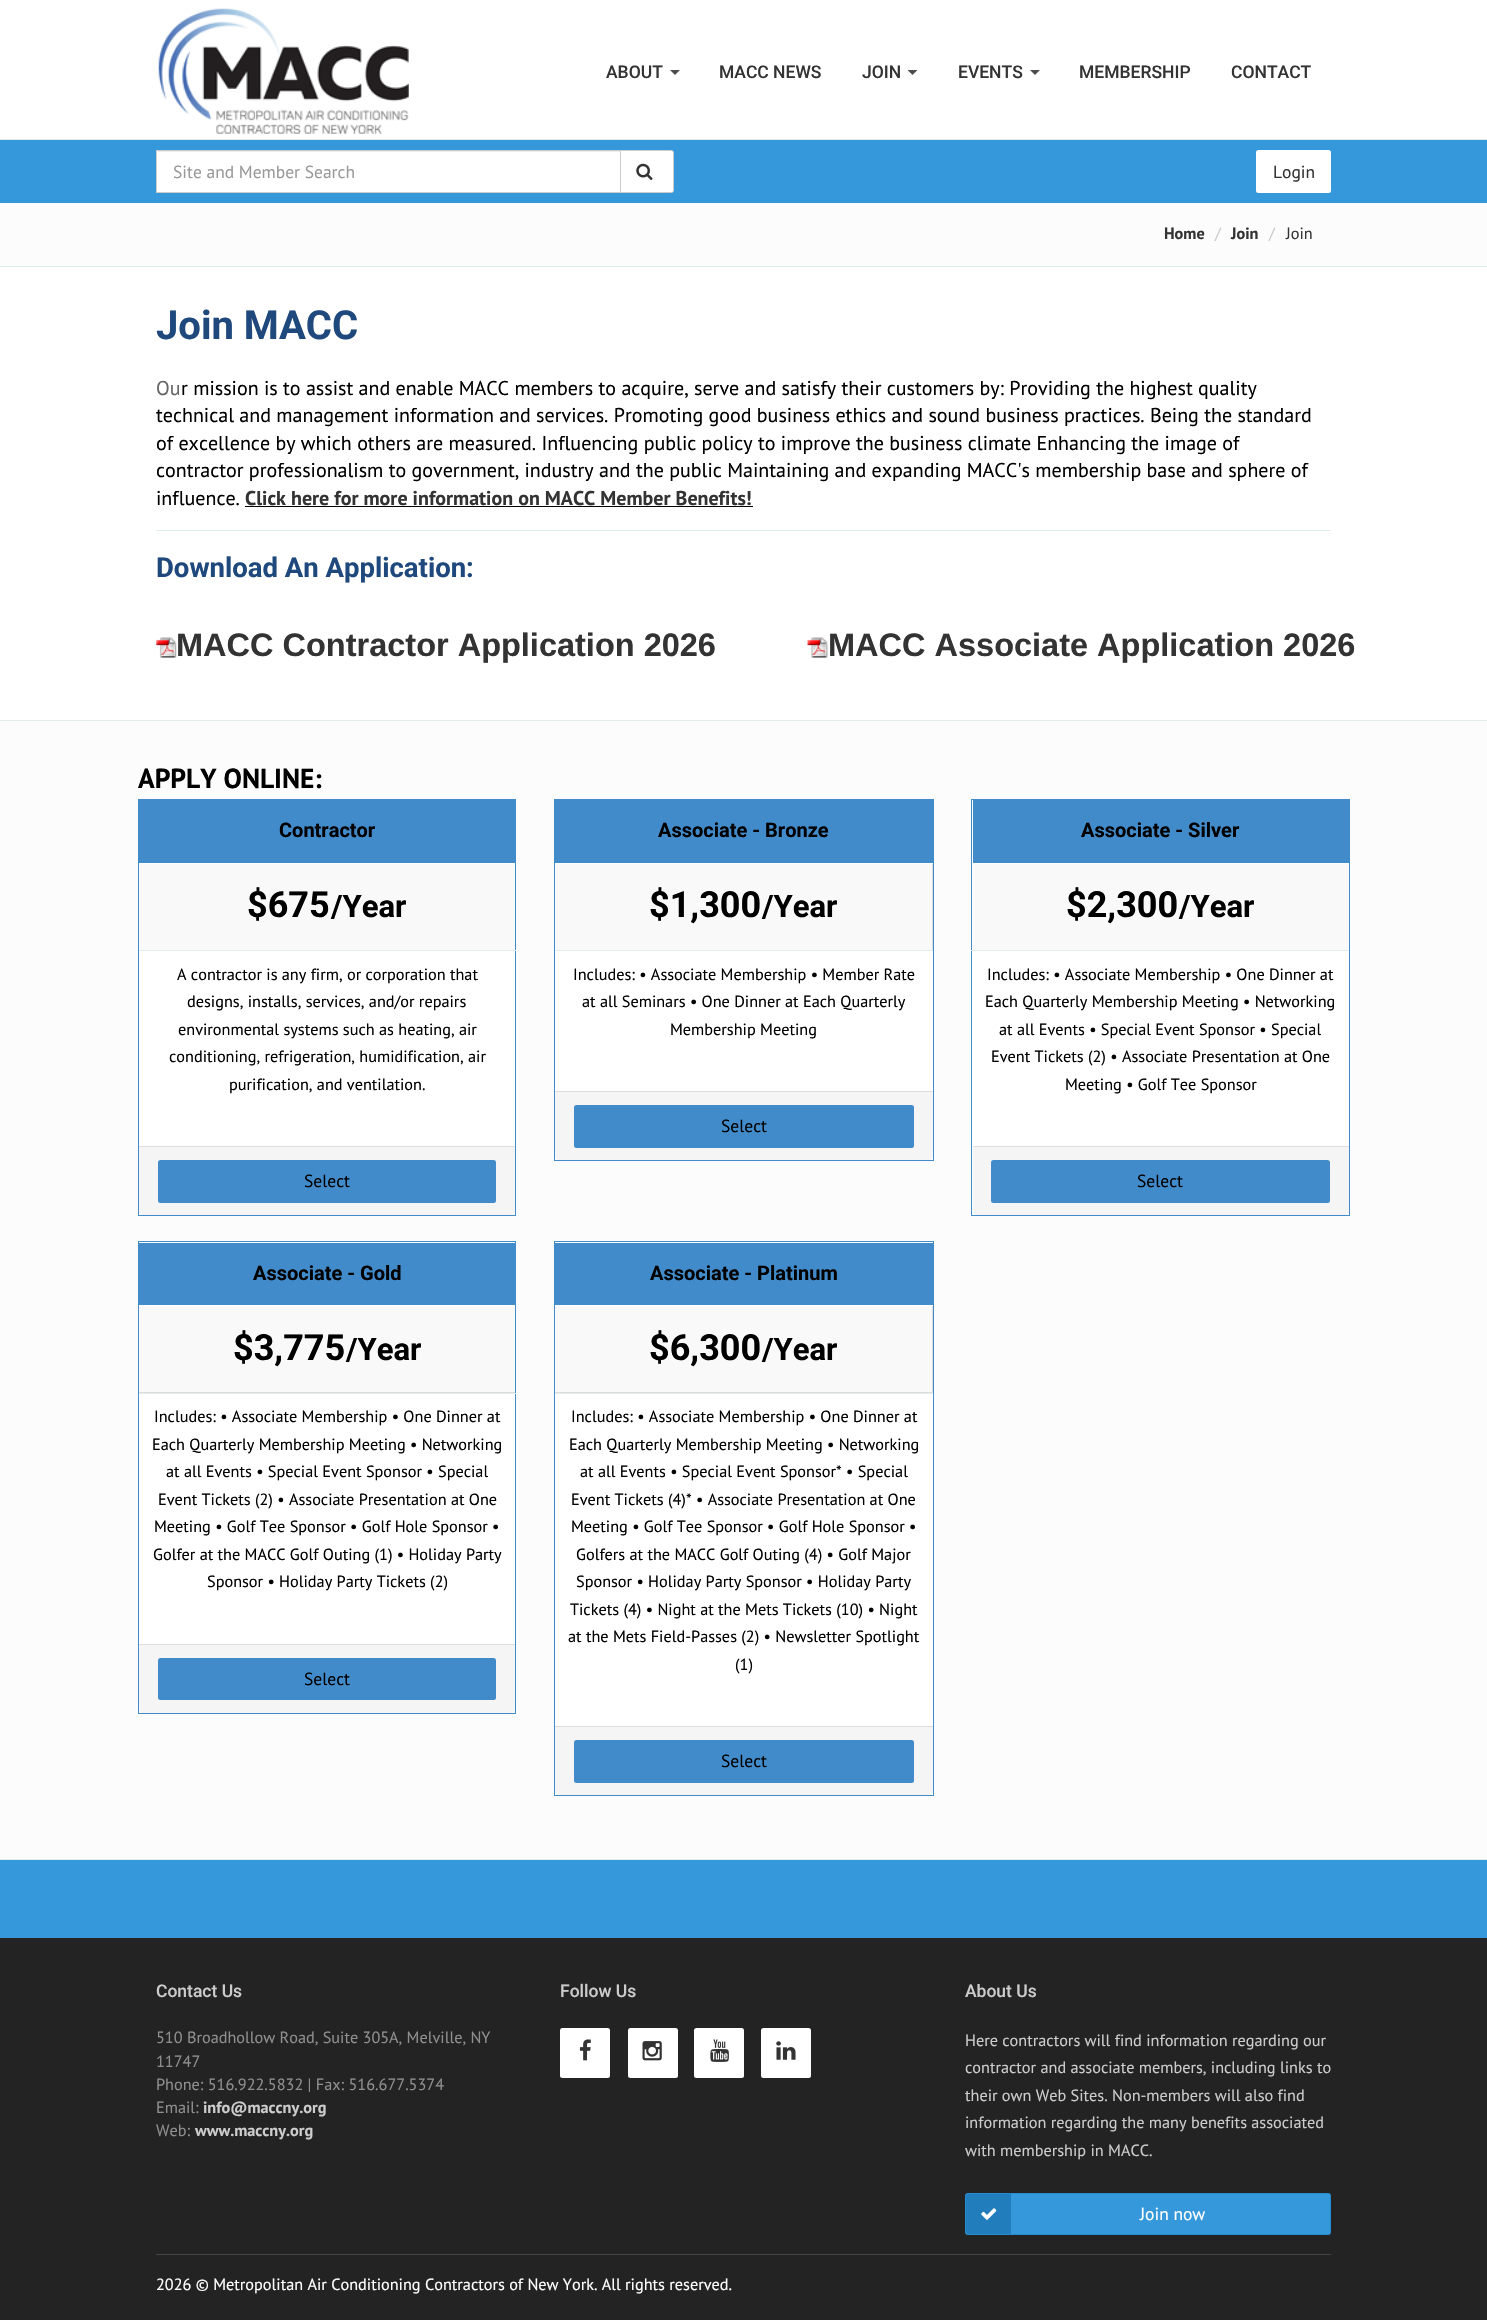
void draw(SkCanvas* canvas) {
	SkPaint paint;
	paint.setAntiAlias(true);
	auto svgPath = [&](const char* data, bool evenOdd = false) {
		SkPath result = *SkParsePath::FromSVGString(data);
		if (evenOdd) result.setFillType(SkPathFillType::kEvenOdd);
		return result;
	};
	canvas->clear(0xffffffff);
	paint.setColor(0xffe0eded);
	canvas->drawRect(SkRect::MakeXYWH(0, 139, 1487, 1), paint);
	canvas->drawImageRect(SkImages::DeferredFromEncodedData(SkData::MakeFromFileName("img1.png")), SkRect::MakeXYWH(158, 8, 251, 126), SkSamplingOptions());
	SkFont f1(fontMgr->matchFamilyStyle("Roboto", SkFontStyle(500, SkFontStyle::kNormal_Width, SkFontStyle::kUpright_Slant)), 17.5);
	f1.setSubpixel(true);
	paint.setColor(0xff333333);
	canvas->drawString("ABOUT", 606, 78, f1, paint);
	paint.setColor(0xff4c4c4c);
	canvas->drawPath(svgPath("M670 70H680L675 75Z"), paint);
	paint.setColor(0xff333333);
	canvas->drawString("MACC NEWS", 719, 78, f1, paint);
	canvas->drawString("JOIN", 862, 78, f1, paint);
	paint.setColor(0xff4c4c4c);
	canvas->drawPath(svgPath("M907.5 70H917.5L912.5 75Z"), paint);
	paint.setColor(0xff333333);
	canvas->drawString("EVENTS", 958, 78, f1, paint);
	paint.setColor(0xff4c4c4c);
	canvas->drawPath(svgPath("M1030 70H1040L1035 75Z"), paint);
	paint.setColor(0xff333333);
	canvas->drawString("MEMBERSHIP", 1079, 78, f1, paint);
	canvas->drawString("CONTACT", 1231, 78, f1, paint);
	paint.setColor(0xff3498db);
	canvas->drawRect(SkRect::MakeXYWH(0, 140, 1487, 63), paint);
	paint.setColor(0xffffffff);
	canvas->drawRect(SkRect::MakeXYWH(157, 151, 463, 41), paint);
	paint.setColor(0xffececec);
	canvas->drawRect(SkRect::MakeXYWH(158, 151, 462, 1), paint);
	paint.setColor(0xffffffff);
	canvas->drawPath(svgPath("M620.5 150.5H671.5C672.5 150.5 673.5 151.5 673.5 152.5V190.5C673.5 191.5 672.5 192.5 671.5 192.5H620.5Z"), paint);
	paint.setStroke(true);
	paint.setStrokeWidth(1);
	paint.setColor(0xffcccccc);
	canvas->drawPath(svgPath("M620.5 150.5H671.5C672.5 150.5 673.5 151.5 673.5 152.5V190.5C673.5 191.5 672.5 192.5 671.5 192.5H620.5Z"), paint);
	canvas->drawRect(SkRect::MakeXYWH(156.5, 150.5, 464, 42), paint);
	SkFont f2(fontMgr->matchFamilyStyle("PT Sans", SkFontStyle::Normal()), 17.5);
	f2.setSubpixel(true);
	paint.setStroke(false);
	paint.setColor(0xff999999);
	canvas->drawString("Site and Member Search", 173, 178, f2, paint);
	canvas->drawImageRect(SkImages::DeferredFromEncodedData(SkData::MakeFromFileName("img2.png")), SkRect::MakeXYWH(636, 163, 17, 17), SkSamplingOptions());
	paint.setColor(0xffffffff);
	canvas->drawRoundRect(SkRect::MakeXYWH(1256, 150, 75, 43), 2.5, 2.5, paint);
	paint.setColor(0xff333333);
	canvas->drawString("Login", 1273, 178, f2, paint);
	paint.setColor(0xfffcfcfc);
	canvas->drawRect(SkRect::MakeXYWH(0, 203, 1487, 65), paint);
	paint.setColor(0xffe0eded);
	canvas->drawRect(SkRect::MakeXYWH(0, 266, 1487, 1), paint);
	SkFont f3(fontMgr->matchFamilyStyle("PT Sans", SkFontStyle::Bold()), 16.25);
	f3.setSubpixel(true);
	paint.setColor(0xff333333);
	canvas->drawString("Home", 1164, 239, f3, paint);
	SkFont f4(fontMgr->matchFamilyStyle("PT Sans", SkFontStyle::Normal()), 16.25);
	f4.setSubpixel(true);
	paint.setColor(0xffcccccc);
	canvas->drawString("/", 1215, 239, f4, paint);
	paint.setColor(0xff333333);
	canvas->drawString("Join", 1231, 239, f3, paint);
	paint.setColor(0xffcccccc);
	canvas->drawString("/", 1269, 239, f4, paint);
	paint.setColor(0xff333333);
	canvas->drawString("Join", 1286, 239, f4, paint);
	paint.setColor(0xffe0eded);
	canvas->drawRect(SkRect::MakeXYWH(0, 720, 1487, 1), paint);
	SkFont f5(fontMgr->matchFamilyStyle("Roboto", SkFontStyle::Bold()), 40);
	f5.setSubpixel(true);
	paint.setColor(0xff1f497d);
	canvas->drawString("Join MACC", 156, 339, f5, paint);
	SkFont f6(fontMgr->matchFamilyStyle("PT Sans", SkFontStyle::Normal()), 20);
	f6.setSubpixel(true);
	paint.setColor(0xff666666);
	canvas->drawString("Ou", 156, 395, f6, paint);
	paint.setColor(0xff000000);
	canvas->drawString("r mission is to assist and enable MACC members to acquire, serve and satisfy their customers by: Providing the highest quality", 181, 395, f6, paint);
	canvas->drawString("technical and management information and services. Promoting good business ethics and sound business practices. Being the standard", 156, 422, f6, paint);
	canvas->drawString("of excellence by which others are measured. Influencing public policy to improve the business climate Enhancing the image of", 156, 450, f6, paint);
	canvas->drawString("contractor professionalism to government, industry and the public Maintaining and expanding MACC's membership base and sphere of", 156, 477, f6, paint);
	canvas->drawString("influence.", 156, 505, f6, paint);
	SkFont f7(fontMgr->matchFamilyStyle("PT Sans", SkFontStyle::Bold()), 20);
	f7.setSubpixel(true);
	paint.setColor(0xff333333);
	canvas->drawString("Click here for more information on MACC Member Benefits!", 245, 505, f7, paint);
	paint.setColor(0xff000000);
	canvas->drawRect(SkRect::MakeXYWH(245, 506, 508, 1), paint);
	paint.setColor(0xffe0eded);
	canvas->drawRect(SkRect::MakeXYWH(156, 530, 1175, 1), paint);
	SkFont f8(fontMgr->matchFamilyStyle("Roboto", SkFontStyle::Bold()), 27.5);
	f8.setSubpixel(true);
	paint.setColor(0xff1f497d);
	canvas->drawString("Download An Application:", 156, 577, f8, paint);
	canvas->drawImageRect(SkImages::DeferredFromEncodedData(SkData::MakeFromFileName("img3.png")), SkRect::MakeXYWH(156, 637, 21, 21), SkSamplingOptions());
	SkFont f9(fontMgr->matchFamilyStyle("Liberation Sans", SkFontStyle::Bold()), 32.5);
	f9.setSubpixel(true);
	paint.setColor(0xff333333);
	canvas->drawString("MACC Contractor Application 2026", 176, 656, f9, paint);
	canvas->drawImageRect(SkImages::DeferredFromEncodedData(SkData::MakeFromFileName("img4.png")), SkRect::MakeXYWH(807, 637, 21, 21), SkSamplingOptions());
	canvas->drawString("MACC Associate Application 2026", 828, 656, f9, paint);
	paint.setColor(0xfffcfcfc);
	canvas->drawRect(SkRect::MakeXYWH(0, 721, 1487, 1138), paint);
	paint.setColor(0xffe0eded);
	canvas->drawRect(SkRect::MakeXYWH(0, 1859, 1487, 1), paint);
	SkFont f10(fontMgr->matchFamilyStyle("PT Sans", SkFontStyle::Bold()), 27.5);
	f10.setSubpixel(true);
	paint.setColor(0xff000000);
	canvas->drawString("APPLY ONLINE:", 138, 788, f10, paint);
	paint.setColor(0xffffffff);
	canvas->drawRect(SkRect::MakeXYWH(139, 951, 376, 264), paint);
	paint.setStroke(true);
	paint.setColor(0xff428bca);
	canvas->drawRect(SkRect::MakeXYWH(138.5, 799.5, 377, 416), paint);
	paint.setStroke(false);
	canvas->drawRect(SkRect::MakeXYWH(139, 800, 376, 63), paint);
	SkFont f11(fontMgr->matchFamilyStyle("Roboto", SkFontStyle::Bold()), 20);
	f11.setSubpixel(true);
	paint.setColor(0xff000000);
	canvas->drawString("Contractor", 279, 837, f11, paint);
	paint.setColor(0xfff9f9f9);
	canvas->drawRect(SkRect::MakeXYWH(139, 864, 376, 86), paint);
	paint.setColor(0xffffffff);
	canvas->drawRect(SkRect::MakeXYWH(139, 863, 376, 1), paint);
	SkFont f12(fontMgr->matchFamilyStyle("Roboto", SkFontStyle::Bold()), 36);
	f12.setSubpixel(true);
	paint.setColor(0xff000000);
	canvas->drawString("$675", 247, 917, f12, paint);
	SkFont f13(fontMgr->matchFamilyStyle("Roboto", SkFontStyle::Bold()), 31);
	f13.setSubpixel(true);
	canvas->drawString("/Year", 331, 917, f13, paint);
	paint.setColor(0xffe0eded);
	canvas->drawRect(SkRect::MakeXYWH(139, 950, 377, 1), paint);
	paint.setColor(0xff000000);
	canvas->drawString("A contractor is any firm, or corporation that", 177, 980, f4, paint);
	canvas->drawString("designs, installs, services, and/or repairs", 187, 1007, f4, paint);
	canvas->drawString("environmental systems such as heating, air", 178, 1035, f4, paint);
	canvas->drawString("conditioning, refrigeration, humidification, air", 169, 1062, f4, paint);
	canvas->drawString("purification, and ventilation.", 229, 1090, f4, paint);
	paint.setColor(0xfff5f5f5);
	canvas->drawPath(svgPath("M139 1146H515V1211C515 1213 513 1215 511 1215H143C141 1215 139 1213 139 1211Z"), paint);
	paint.setColor(0xffdddddd);
	canvas->drawRect(SkRect::MakeXYWH(139, 1146, 376, 1), paint);
	paint.setColor(0xff428bca);
	canvas->drawRoundRect(SkRect::MakeXYWH(158, 1160, 338, 43), 2.5, 2.5, paint);
	paint.setColor(0xff000000);
	canvas->drawString("Select", 304, 1187, f2, paint);
	paint.setColor(0xffffffff);
	canvas->drawRect(SkRect::MakeXYWH(555, 864, 378, 296), paint);
	paint.setStroke(true);
	paint.setColor(0xff428bca);
	canvas->drawRect(SkRect::MakeXYWH(554.5, 799.5, 379, 361), paint);
	paint.setStroke(false);
	canvas->drawRect(SkRect::MakeXYWH(555, 800, 378, 63), paint);
	paint.setColor(0xff000000);
	canvas->drawString("Associate - Bronze", 658, 837, f11, paint);
	paint.setColor(0xffdcdcdc);
	canvas->drawPath(svgPath("M555 950V951H933V864H932V950Z"), paint);
	paint.setColor(0x2bdcdcdc);
	canvas->drawRect(SkRect::MakeXYWH(555, 864, 377, 86), paint);
	paint.setColor(0xffffffff);
	canvas->drawRect(SkRect::MakeXYWH(555, 863, 378, 1), paint);
	paint.setColor(0xff000000);
	canvas->drawString("$1,300", 649, 917, f12, paint);
	canvas->drawString("/Year", 762, 917, f13, paint);
	paint.setColor(0xffe0eded);
	canvas->drawRect(SkRect::MakeXYWH(555, 950, 378, 1), paint);
	paint.setColor(0xff000000);
	canvas->drawString("Includes: • Associate Membership • Member Rate", 573, 980, f4, paint);
	canvas->drawString("at all Seminars • One Dinner at Each Quarterly", 582, 1007, f4, paint);
	canvas->drawString("Membership Meeting", 670, 1035, f4, paint);
	paint.setColor(0xfff5f5f5);
	canvas->drawPath(svgPath("M555 1091H933V1156C933 1158 931 1160 929 1160H559C557 1160 555 1158 555 1156Z"), paint);
	paint.setColor(0xffdddddd);
	canvas->drawRect(SkRect::MakeXYWH(555, 1091, 378, 1), paint);
	paint.setColor(0xff428bca);
	canvas->drawRoundRect(SkRect::MakeXYWH(574, 1105, 340, 43), 2.5, 2.5, paint);
	paint.setColor(0xff000000);
	canvas->drawString("Select", 721, 1132, f2, paint);
	paint.setColor(0xffffffff);
	canvas->drawRect(SkRect::MakeXYWH(971.5, 799.5, 378, 416), paint);
	paint.setStroke(true);
	paint.setColor(0xff428bca);
	canvas->drawRect(SkRect::MakeXYWH(971.5, 799.5, 378, 416), paint);
	paint.setStroke(false);
	canvas->drawRect(SkRect::MakeXYWH(973, 800, 376, 63), paint);
	paint.setColor(0xff000000);
	canvas->drawString("Associate - Silver", 1081, 837, f11, paint);
	paint.setColor(0xfff9f9f9);
	canvas->drawRect(SkRect::MakeXYWH(973, 864, 376, 86), paint);
	paint.setColor(0xff000000);
	canvas->drawString("$2,300", 1066, 917, f12, paint);
	canvas->drawString("/Year", 1179, 917, f13, paint);
	paint.setColor(0xffe0eded);
	canvas->drawRect(SkRect::MakeXYWH(971, 950, 378, 1), paint);
	paint.setColor(0xff000000);
	canvas->drawString("Includes: • Associate Membership • One Dinner at", 987, 980, f4, paint);
	canvas->drawString("Each Quarterly Membership Meeting • Networking", 985, 1007, f4, paint);
	canvas->drawString("at all Events • Special Event Sponsor • Special", 999, 1035, f4, paint);
	canvas->drawString("Event Tickets (2) • Associate Presentation at One", 991, 1062, f4, paint);
	canvas->drawString("Meeting • Golf Tee Sponsor", 1065, 1090, f4, paint);
	paint.setColor(0xfff5f5f5);
	canvas->drawPath(svgPath("M973 1146H1349V1211C1349 1213 1347 1215 1345 1215H977C975 1215 973 1213 973 1211Z"), paint);
	paint.setColor(0xffdddddd);
	canvas->drawRect(SkRect::MakeXYWH(973, 1146, 376, 1), paint);
	paint.setColor(0xff428bca);
	canvas->drawRoundRect(SkRect::MakeXYWH(991, 1160, 339, 43), 2.5, 2.5, paint);
	paint.setColor(0xff000000);
	canvas->drawString("Select", 1137, 1187, f2, paint);
	paint.setColor(0xffffffff);
	canvas->drawRect(SkRect::MakeXYWH(139, 1242, 376, 471), paint);
	paint.setColor(0xfff9f9f9);
	canvas->drawRect(SkRect::MakeXYWH(139, 1306, 376, 86), paint);
	paint.setStroke(true);
	paint.setColor(0xff428bca);
	canvas->drawRect(SkRect::MakeXYWH(138.5, 1241.5, 377, 472), paint);
	paint.setStroke(false);
	canvas->drawRect(SkRect::MakeXYWH(139, 1243, 376, 62), paint);
	paint.setColor(0xff000000);
	canvas->drawString("Associate - Gold", 253, 1280, f11, paint);
	paint.setColor(0xffdcdcdc);
	canvas->drawRect(SkRect::MakeXYWH(139, 1392, 376, 1), paint);
	paint.setColor(0xff000000);
	canvas->drawString("$3,775", 233, 1360, f12, paint);
	canvas->drawString("/Year", 346, 1360, f13, paint);
	paint.setColor(0xffe0eded);
	canvas->drawRect(SkRect::MakeXYWH(139, 1393, 377, 1), paint);
	paint.setColor(0xff000000);
	canvas->drawString("Includes: • Associate Membership • One Dinner at", 154, 1422, f4, paint);
	canvas->drawString("Each Quarterly Membership Meeting • Networking", 152, 1450, f4, paint);
	canvas->drawString("at all Events • Special Event Sponsor • Special", 166, 1477, f4, paint);
	canvas->drawString("Event Tickets (2) • Associate Presentation at One", 158, 1505, f4, paint);
	canvas->drawString("Meeting • Golf Tee Sponsor • Golf Hole Sponsor •", 154, 1532, f4, paint);
	canvas->drawString("Golfer at the MACC Golf Outing (1) • Holiday Party", 153, 1560, f4, paint);
	canvas->drawString("Sponsor • Holiday Party Tickets (2)", 207, 1587, f4, paint);
	paint.setColor(0xfff5f5f5);
	canvas->drawPath(svgPath("M139 1644H515V1709C515 1711 513 1713 511 1713H143C141 1713 139 1711 139 1709Z"), paint);
	paint.setColor(0xffdddddd);
	canvas->drawRect(SkRect::MakeXYWH(139, 1644, 376, 1), paint);
	paint.setColor(0xff428bca);
	canvas->drawRoundRect(SkRect::MakeXYWH(158, 1658, 338, 42), 2.5, 2.5, paint);
	paint.setColor(0xff000000);
	canvas->drawString("Select", 304, 1685, f2, paint);
	paint.setColor(0xffffffff);
	canvas->drawRect(SkRect::MakeXYWH(554.5, 1241.5, 379, 554), paint);
	paint.setStroke(true);
	paint.setColor(0xff428bca);
	canvas->drawRect(SkRect::MakeXYWH(554.5, 1241.5, 379, 554), paint);
	paint.setStroke(false);
	canvas->drawRect(SkRect::MakeXYWH(555, 1243, 378, 62), paint);
	paint.setColor(0xff000000);
	canvas->drawString("Associate - Platinum", 650, 1280, f11, paint);
	paint.setColor(0xffdcdcdc);
	canvas->drawPath(svgPath("M555 1392V1394H933V1306H932V1392Z"), paint);
	paint.setColor(0x2bdcdcdc);
	canvas->drawRect(SkRect::MakeXYWH(555, 1306, 377, 86), paint);
	paint.setColor(0xff000000);
	canvas->drawString("$6,300", 649, 1360, f12, paint);
	canvas->drawString("/Year", 762, 1360, f13, paint);
	paint.setColor(0xffe0eded);
	canvas->drawRect(SkRect::MakeXYWH(555, 1393, 378, 1), paint);
	paint.setColor(0xff000000);
	canvas->drawString("Includes: • Associate Membership • One Dinner at", 571, 1422, f4, paint);
	canvas->drawString("Each Quarterly Membership Meeting • Networking", 569, 1450, f4, paint);
	canvas->drawString("at all Events • Special Event Sponsor* • Special", 580, 1477, f4, paint);
	canvas->drawString("Event Tickets (4)* • Associate Presentation at One", 571, 1505, f4, paint);
	canvas->drawString("Meeting • Golf Tee Sponsor • Golf Hole Sponsor •", 571, 1532, f4, paint);
	canvas->drawString("Golfers at the MACC Golf Outing (4) • Golf Major", 576, 1560, f4, paint);
	canvas->drawString("Sponsor • Holiday Party Sponsor • Holiday Party", 576, 1587, f4, paint);
	canvas->drawString("Tickets (4) • Night at the Mets Tickets (10) • Night", 570, 1615, f4, paint);
	canvas->drawString("at the Mets Field-Passes (2) • Newsletter Spotlight", 568, 1642, f4, paint);
	canvas->drawString("(1)", 735, 1670, f4, paint);
	paint.setColor(0xfff5f5f5);
	canvas->drawPath(svgPath("M555 1726H933V1791C933 1793 931 1795 929 1795H559C557 1795 555 1793 555 1791Z"), paint);
	paint.setColor(0xffdddddd);
	canvas->drawRect(SkRect::MakeXYWH(555, 1726, 378, 1), paint);
	paint.setColor(0xff428bca);
	canvas->drawRoundRect(SkRect::MakeXYWH(574, 1740, 340, 43), 2.5, 2.5, paint);
	paint.setColor(0xff000000);
	canvas->drawString("Select", 721, 1767, f2, paint);
	paint.setColor(0xff3498db);
	canvas->drawRect(SkRect::MakeXYWH(0, 1860, 1487, 78), paint);
	paint.setColor(0xff232323);
	canvas->drawRect(SkRect::MakeXYWH(0, 1938, 1487, 382), paint);
	paint.setColor(0xffcccccc);
	canvas->drawString("Contact Us", 156, 1997, f1, paint);
	paint.setColor(0xff8f8f8f);
	canvas->drawString("510 Broadhollow Road, Suite 305A, Melville, NY", 156, 2043, f4, paint);
	canvas->drawString("11747", 156, 2067, f4, paint);
	canvas->drawString("Phone: 516.922.5832 | Fax: 516.677.5374", 156, 2090, f4, paint);
	canvas->drawString("Email:", 156, 2113, f4, paint);
	paint.setColor(0xffcccccc);
	canvas->drawString("info@maccny.org", 203, 2113, f3, paint);
	paint.setColor(0xff8f8f8f);
	canvas->drawString("Web:", 156, 2136, f4, paint);
	paint.setColor(0xffcccccc);
	canvas->drawString("www.maccny.org", 195, 2136, f3, paint);
	canvas->drawString("Follow Us", 560, 1997, f1, paint);
	paint.setColor(0xffffffff);
	canvas->drawRoundRect(SkRect::MakeXYWH(560, 2028, 50, 50), 2.5, 2.5, paint);
	canvas->drawImageRect(SkImages::DeferredFromEncodedData(SkData::MakeFromFileName("img5.png")), SkRect::MakeXYWH(579, 2039, 12, 22), SkSamplingOptions());
	canvas->drawRoundRect(SkRect::MakeXYWH(628, 2028, 50, 50), 2.5, 2.5, paint);
	canvas->drawImageRect(SkImages::DeferredFromEncodedData(SkData::MakeFromFileName("img6.png")), SkRect::MakeXYWH(642, 2041, 20, 20), SkSamplingOptions());
	canvas->drawRoundRect(SkRect::MakeXYWH(694, 2028, 50, 50), 2.5, 2.5, paint);
	canvas->drawImageRect(SkImages::DeferredFromEncodedData(SkData::MakeFromFileName("img7.png")), SkRect::MakeXYWH(710, 2039, 19, 23), SkSamplingOptions());
	canvas->drawRoundRect(SkRect::MakeXYWH(761, 2028, 50, 50), 2.5, 2.5, paint);
	canvas->drawImageRect(SkImages::DeferredFromEncodedData(SkData::MakeFromFileName("img8.png")), SkRect::MakeXYWH(776, 2041, 20, 19), SkSamplingOptions());
	paint.setColor(0xffcccccc);
	canvas->drawString("About Us", 965, 1997, f1, paint);
	canvas->drawString("Here contractors will find information regarding our", 965, 2046, f4, paint);
	canvas->drawString("contractor and associate members, including links to", 965, 2073, f4, paint);
	canvas->drawString("their own Web Sites. Non-members will also find", 965, 2101, f4, paint);
	canvas->drawString("information regarding the many benefits associated", 965, 2128, f4, paint);
	canvas->drawString("with membership in MACC.", 965, 2156, f4, paint);
	paint.setColor(0xff3498db);
	canvas->drawRoundRect(SkRect::MakeXYWH(965.5, 2193.5, 365, 41), 2, 2, paint);
	paint.setStroke(true);
	paint.setColor(0xff258cd1);
	canvas->drawRoundRect(SkRect::MakeXYWH(965.5, 2193.5, 365, 41), 2, 2, paint);
	paint.setStroke(false);
	paint.setColor(0xff217dbb);
	canvas->drawPath(svgPath("M968.5 2194H1011V2234H968.5C967 2234 966 2233 966 2231.5V2196.5C966 2195 967 2194 968.5 2194Z"), paint);
	canvas->drawImageRect(SkImages::DeferredFromEncodedData(SkData::MakeFromFileName("img9.png")), SkRect::MakeXYWH(981, 2208, 16, 12), SkSamplingOptions());
	paint.setColor(0xffffffff);
	canvas->drawString("Join now", 1140, 2220, f2, paint);
	paint.setColor(0xff444444);
	canvas->drawRect(SkRect::MakeXYWH(156, 2254, 1175, 1), paint);
	paint.setColor(0xffffffff);
	canvas->drawString("2026 © Metropolitan Air Conditioning Contractors of New York. All rights reserved.", 156, 2290, f4, paint);
}
